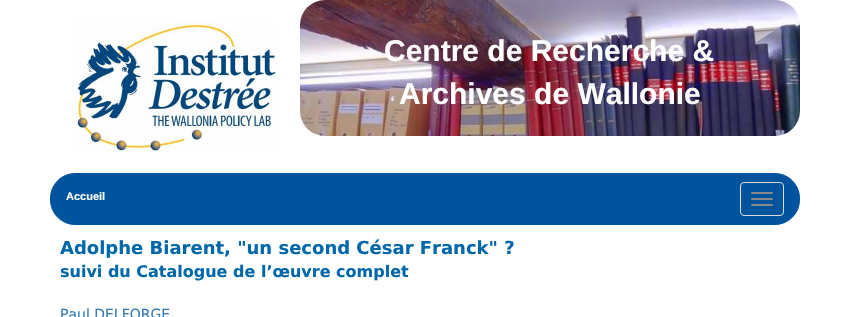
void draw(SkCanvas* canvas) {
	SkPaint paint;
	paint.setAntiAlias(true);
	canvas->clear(0xffffffff);
	canvas->drawImageRect(SkImages::DeferredFromEncodedData(SkData::MakeFromFileName("img1.png")), SkRect::MakeXYWH(72, 20, 206, 133), SkSamplingOptions());
	canvas->drawImageRect(SkImages::DeferredFromEncodedData(SkData::MakeFromFileName("img2.png")), SkRect::MakeXYWH(300, 0, 500, 136), SkSamplingOptions());
	SkFont f1(fontMgr->matchFamilyStyle("Liberation Sans", SkFontStyle::Bold()), 30);
	f1.setSubpixel(true);
	paint.setColor(0xffffffff);
	canvas->drawString("Centre de Recherche &", 384, 61, f1, paint);
	canvas->drawString("Archives de Wallonie", 399, 104, f1, paint);
	paint.setColor(0xff00549d);
	canvas->drawRoundRect(SkRect::MakeXYWH(50.5, 173.5, 749, 51), 24.5, 24.5, paint);
	paint.setStroke(true);
	paint.setStrokeWidth(1);
	paint.setColor(0xff00539c);
	canvas->drawRoundRect(SkRect::MakeXYWH(50.5, 173.5, 749, 51), 24.5, 24.5, paint);
	SkFont f2(fontMgr->matchFamilyStyle("Liberation Sans", SkFontStyle::Bold()), 11);
	f2.setSubpixel(true);
	paint.setStroke(false);
	paint.setColor(0xffffffff);
	canvas->drawString("Accueil", 66, 200, f2, paint);
	paint.setStroke(true);
	paint.setColor(0xffdddddd);
	canvas->drawRoundRect(SkRect::MakeXYWH(740.5, 182.5, 43, 33), 3.5, 3.5, paint);
	paint.setStroke(false);
	paint.setColor(0xff888888);
	canvas->drawRoundRect(SkRect::MakeXYWH(751, 192, 22, 2), 1, 1, paint);
	canvas->drawRoundRect(SkRect::MakeXYWH(751, 198, 22, 2), 1, 1, paint);
	canvas->drawRoundRect(SkRect::MakeXYWH(751, 204, 22, 2), 1, 1, paint);
	SkFont f3(fontMgr->matchFamilyStyle("DejaVu Sans", SkFontStyle::Bold()), 18);
	f3.setSubpixel(true);
	paint.setColor(0xff0068aa);
	canvas->drawString("Adolphe Biarent, \"un second César Franck\" ?", 60, 254, f3, paint);
	SkFont f4(fontMgr->matchFamilyStyle("DejaVu Sans", SkFontStyle::Bold()), 16);
	f4.setSubpixel(true);
	canvas->drawString("suivi du Catalogue de l’œuvre complet", 60, 277, f4, paint);
	SkFont f5(fontMgr->matchFamilyStyle("DejaVu Sans", SkFontStyle::Normal()), 14);
	f5.setSubpixel(true);
	paint.setColor(0xff337ab7);
	canvas->drawString("Paul DELFORGE", 60, 319, f5, paint);
}
